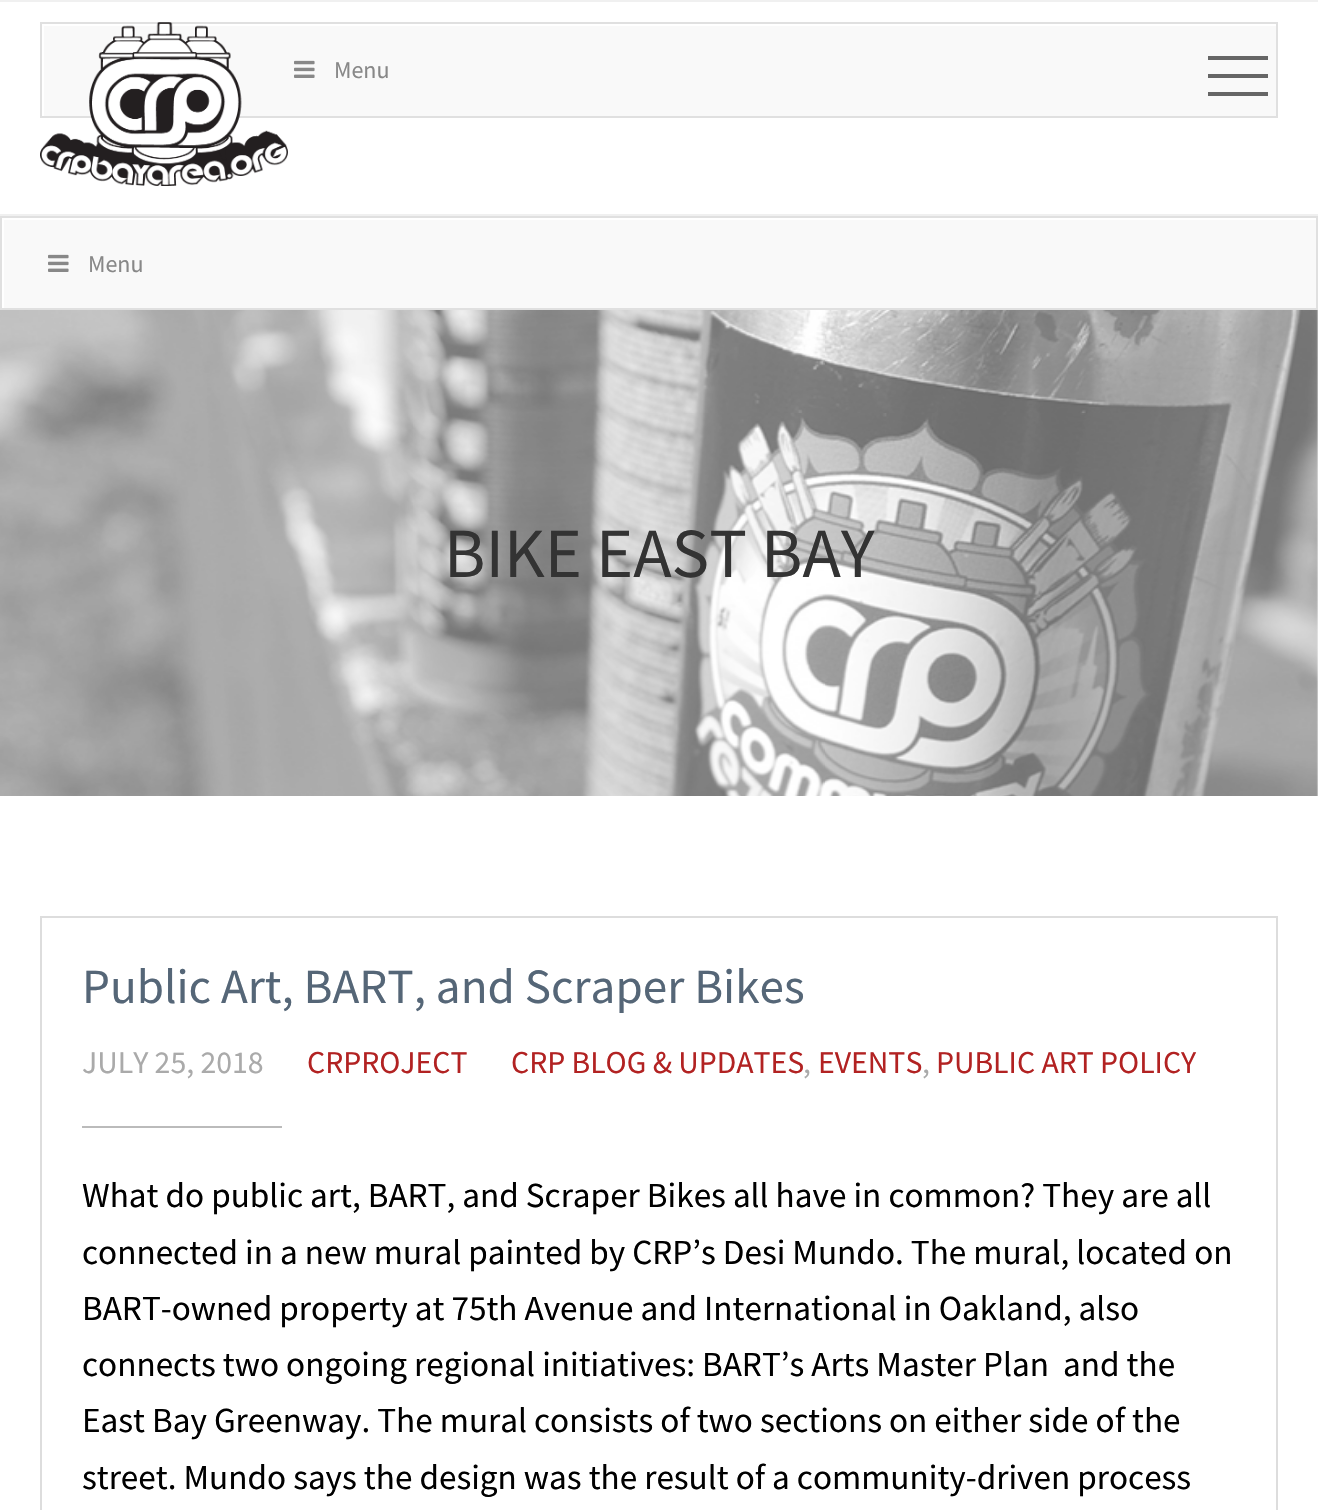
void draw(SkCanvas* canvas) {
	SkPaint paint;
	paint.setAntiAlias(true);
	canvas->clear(0xffffffff);
	canvas->drawImageRect(SkImages::DeferredFromEncodedData(SkData::MakeFromFileName("img1.png")), SkRect::MakeXYWH(0, 310, 1318, 486), SkSamplingOptions());
	paint.setColor(0xfff0f0f0);
	canvas->drawRect(SkRect::MakeXYWH(0, 0, 1318, 2), paint);
	canvas->drawRect(SkRect::MakeXYWH(0, 214, 1318, 2), paint);
	paint.setColor(0xfff9f9f9);
	canvas->drawRect(SkRect::MakeXYWH(44, 26, 1232, 90), paint);
	paint.setStroke(true);
	paint.setStrokeWidth(2);
	paint.setColor(0xffe0e0e0);
	canvas->drawRect(SkRect::MakeXYWH(41, 23, 1236, 94), paint);
	canvas->drawImageRect(SkImages::DeferredFromEncodedData(SkData::MakeFromFileName("img2.png")), SkRect::MakeXYWH(40, 22, 248, 164), SkSamplingOptions());
	canvas->drawImageRect(SkImages::DeferredFromEncodedData(SkData::MakeFromFileName("img3.png")), SkRect::MakeXYWH(294, 60, 21, 18), SkSamplingOptions());
	SkFont f1(fontMgr->matchFamilyStyle("Source Sans Pro", SkFontStyle::Normal()), 24);
	f1.setSubpixel(true);
	paint.setStroke(false);
	paint.setColor(0xff888888);
	canvas->drawString("Menu", 334, 78, f1, paint);
	paint.setColor(0xff666666);
	canvas->drawRect(SkRect::MakeXYWH(1208, 56, 60, 4), paint);
	canvas->drawRect(SkRect::MakeXYWH(1208, 92, 60, 4), paint);
	canvas->drawRect(SkRect::MakeXYWH(1208, 74, 60, 4), paint);
	paint.setColor(0xfff9f9f9);
	canvas->drawRect(SkRect::MakeXYWH(4, 220, 1312, 88), paint);
	paint.setStroke(true);
	paint.setColor(0xffe0e0e0);
	canvas->drawRect(SkRect::MakeXYWH(1, 217, 1316, 92), paint);
	canvas->drawImageRect(SkImages::DeferredFromEncodedData(SkData::MakeFromFileName("img3.png")), SkRect::MakeXYWH(48, 254, 21, 18), SkSamplingOptions());
	paint.setStroke(false);
	paint.setColor(0xff888888);
	canvas->drawString("Menu", 88, 272, f1, paint);
	paint.setColor(0x66ffffff);
	canvas->drawRect(SkRect::MakeXYWH(0, 310, 1318, 486), paint);
	SkFont f2(fontMgr->matchFamilyStyle("Source Sans Pro", SkFontStyle::Normal()), 70.5);
	f2.setSubpixel(true);
	paint.setColor(0xff333333);
	canvas->drawString("BIKE EAST BAY", 444, 577, f2, paint);
	paint.setStroke(true);
	paint.setColor(0xffdddddd);
	canvas->drawRect(SkRect::MakeXYWH(41, 917, 1236, 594), paint);
	SkFont f3(fontMgr->matchFamilyStyle("Source Sans Pro", SkFontStyle::Normal()), 49.25);
	f3.setSubpixel(true);
	paint.setStroke(false);
	paint.setColor(0xff556677);
	canvas->drawString("Public Art, BART, and Scraper Bikes", 82, 1003, f3, paint);
	SkFont f4(fontMgr->matchFamilyStyle("Source Sans Pro", SkFontStyle::Normal()), 31.75);
	f4.setSubpixel(true);
	paint.setColor(0xffaaaaaa);
	canvas->drawString("JULY 25, 2018", 82, 1073, f4, paint);
	paint.setColor(0xffb22222);
	canvas->drawString("CRPROJECT", 307, 1073, f4, paint);
	canvas->drawString("CRP BLOG & UPDATES", 511, 1073, f4, paint);
	paint.setColor(0xffaaaaaa);
	canvas->drawString(",", 803, 1073, f4, paint);
	paint.setColor(0xffb22222);
	canvas->drawString("EVENTS", 818, 1073, f4, paint);
	paint.setColor(0xffaaaaaa);
	canvas->drawString(",", 922, 1073, f4, paint);
	paint.setColor(0xffb22222);
	canvas->drawString("PUBLIC ART POLICY", 936, 1073, f4, paint);
	paint.setColor(0xffbbbbbb);
	canvas->drawRect(SkRect::MakeXYWH(82, 1126, 200, 2), paint);
	SkFont f5(fontMgr->matchFamilyStyle("Source Sans Pro", SkFontStyle::Normal()), 35.2);
	f5.setSubpixel(true);
	paint.setColor(0xff000000);
	canvas->drawString("What do public art, BART, and Scraper Bikes all have in common? They are all", 82, 1207, f5, paint);
	canvas->drawString("connected in a new mural painted by CRP’s Desi Mundo. The mural, located on", 82, 1264, f5, paint);
	canvas->drawString("BART-owned property at 75th Avenue and International in Oakland, also", 82, 1320, f5, paint);
	canvas->drawString("connects two ongoing regional initiatives: BART’s Arts Master Plan  and the", 82, 1376, f5, paint);
	canvas->drawString("East Bay Greenway. The mural consists of two sections on either side of the", 82, 1432, f5, paint);
	canvas->drawString("street. Mundo says the design was the result of a community-driven process", 82, 1489, f5, paint);
}
